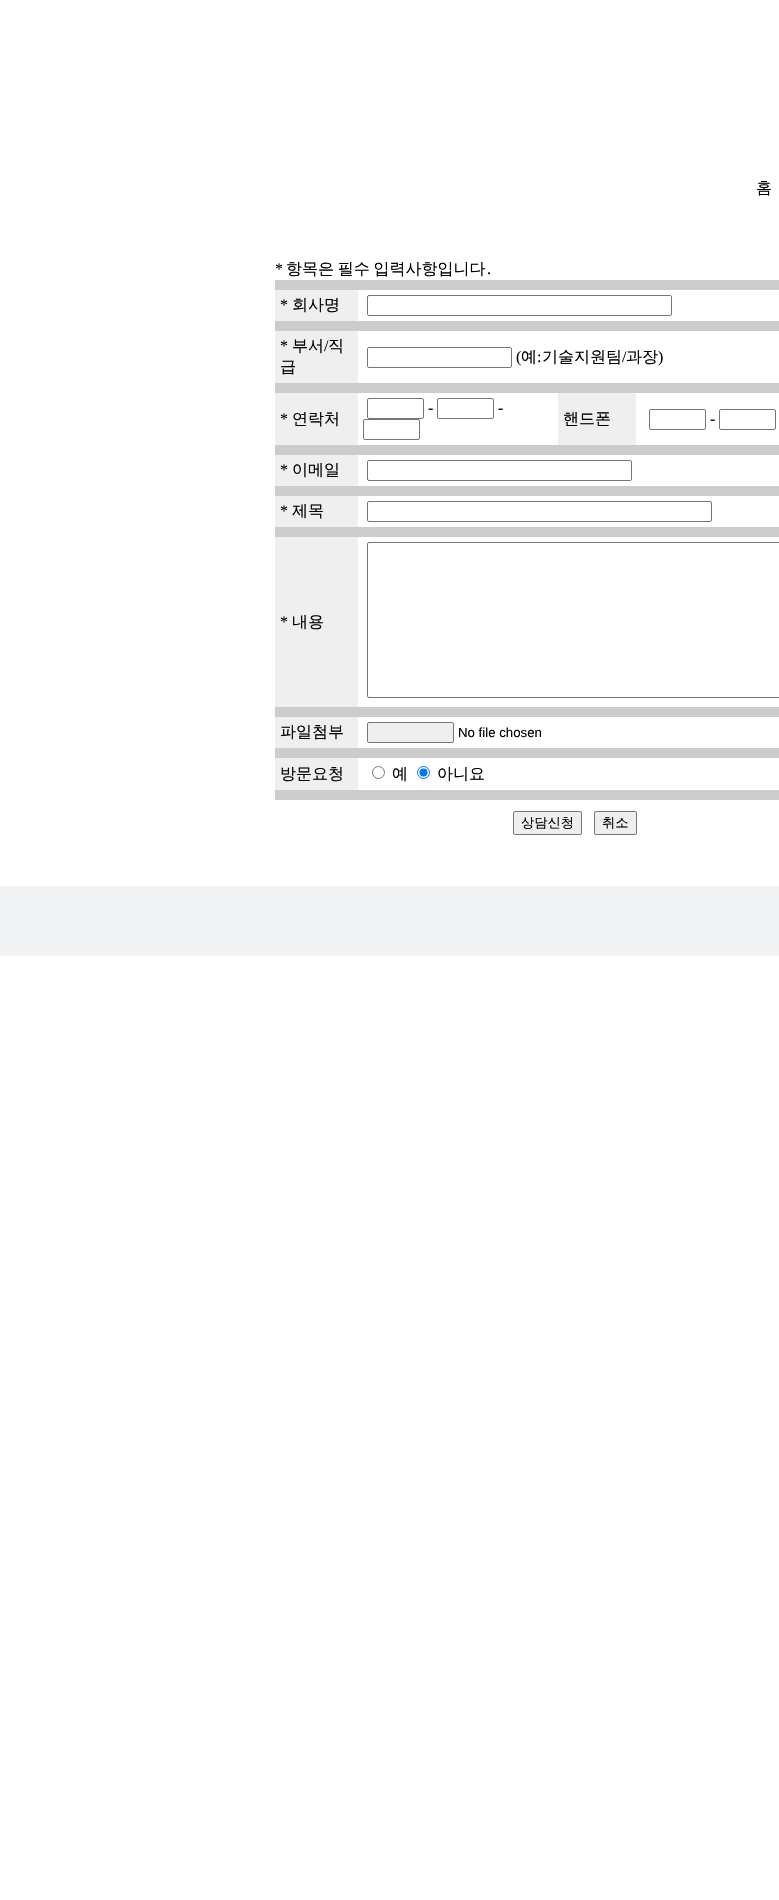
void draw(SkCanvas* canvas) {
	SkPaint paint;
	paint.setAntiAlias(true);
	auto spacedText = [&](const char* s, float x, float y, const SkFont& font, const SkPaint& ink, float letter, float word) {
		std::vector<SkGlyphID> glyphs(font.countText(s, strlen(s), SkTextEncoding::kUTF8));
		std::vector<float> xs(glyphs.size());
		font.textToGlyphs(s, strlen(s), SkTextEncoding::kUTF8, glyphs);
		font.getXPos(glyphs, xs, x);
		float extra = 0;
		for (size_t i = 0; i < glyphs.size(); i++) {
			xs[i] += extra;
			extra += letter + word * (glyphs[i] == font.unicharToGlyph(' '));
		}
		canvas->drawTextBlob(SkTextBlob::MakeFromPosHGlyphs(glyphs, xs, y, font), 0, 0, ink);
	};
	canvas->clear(0xffffffff);
	SkFont f1(fontMgr->matchFamilyStyle("WenQuanYi Zen Hei", SkFontStyle(500, SkFontStyle::kNormal_Width, SkFontStyle::kUpright_Slant)), 16);
	f1.setSubpixel(true);
	paint.setColor(0xff000000);
	canvas->drawString("홈", 756, 193, f1, paint);
	SkFont f2(fontMgr->matchFamilyStyle("Liberation Serif", SkFontStyle::Normal()), 16);
	f2.setSubpixel(true);
	canvas->drawString("*", 275, 274, f2, paint);
	spacedText("항목은 필수 입력사항입니다", 286, 274, f1, paint, 0, -1);
	canvas->drawString(".", 487, 274, f2, paint);
	paint.setColor(0xffcccccc);
	canvas->drawRect(SkRect::MakeXYWH(275, 280, 504, 10), paint);
	paint.setColor(0xffefefef);
	canvas->drawRect(SkRect::MakeXYWH(275, 290, 83, 31), paint);
	paint.setColor(0xff000000);
	canvas->drawString("*", 280, 310, f2, paint);
	canvas->drawString("회사명", 292, 310, f1, paint);
	paint.setStroke(true);
	paint.setStrokeWidth(1);
	paint.setColor(0xff767676);
	canvas->drawRoundRect(SkRect::MakeXYWH(367.5, 295.5, 304, 20), 1.5, 1.5, paint);
	paint.setStroke(false);
	paint.setColor(0xffcccccc);
	canvas->drawRect(SkRect::MakeXYWH(275, 321, 504, 10), paint);
	paint.setColor(0xffefefef);
	canvas->drawRect(SkRect::MakeXYWH(275, 331, 83, 52), paint);
	paint.setColor(0xff000000);
	canvas->drawString("*", 280, 351, f2, paint);
	canvas->drawString("부서", 292, 351, f1, paint);
	canvas->drawString("/", 324, 351, f2, paint);
	canvas->drawString("직", 328, 351, f1, paint);
	canvas->drawString("급", 280, 372, f1, paint);
	paint.setStroke(true);
	paint.setColor(0xff767676);
	canvas->drawRoundRect(SkRect::MakeXYWH(367.5, 347.5, 144, 20), 1.5, 1.5, paint);
	paint.setStroke(false);
	paint.setColor(0xff000000);
	canvas->drawString("(", 516, 362, f2, paint);
	canvas->drawString("예", 521, 362, f1, paint);
	canvas->drawString(":", 537, 362, f2, paint);
	canvas->drawString("기술지원팀", 542, 362, f1, paint);
	canvas->drawString("/", 622, 362, f2, paint);
	canvas->drawString("과장", 626, 362, f1, paint);
	canvas->drawString(")", 658, 362, f2, paint);
	paint.setColor(0xffcccccc);
	canvas->drawRect(SkRect::MakeXYWH(275, 383, 504, 10), paint);
	paint.setStroke(true);
	paint.setColor(0xff767676);
	canvas->drawRoundRect(SkRect::MakeXYWH(367.5, 398.5, 56, 20), 1.5, 1.5, paint);
	paint.setStroke(false);
	paint.setColor(0xff000000);
	canvas->drawString("-", 428, 413, f2, paint);
	paint.setStroke(true);
	paint.setColor(0xff767676);
	canvas->drawRoundRect(SkRect::MakeXYWH(437.5, 398.5, 56, 20), 1.5, 1.5, paint);
	paint.setStroke(false);
	paint.setColor(0xff000000);
	canvas->drawString("-", 498, 413, f2, paint);
	paint.setStroke(true);
	paint.setColor(0xff767676);
	canvas->drawRoundRect(SkRect::MakeXYWH(363.5, 419.5, 56, 20), 1.5, 1.5, paint);
	paint.setStroke(false);
	paint.setColor(0xffefefef);
	canvas->drawRect(SkRect::MakeXYWH(275, 393, 83, 52), paint);
	paint.setColor(0xff000000);
	canvas->drawString("*", 280, 424, f2, paint);
	canvas->drawString("연락처", 292, 424, f1, paint);
	paint.setColor(0xffefefef);
	canvas->drawRect(SkRect::MakeXYWH(558, 393, 78, 52), paint);
	paint.setColor(0xff000000);
	canvas->drawString("핸드폰", 563, 424, f1, paint);
	paint.setStroke(true);
	paint.setColor(0xff767676);
	canvas->drawRoundRect(SkRect::MakeXYWH(649.5, 409.5, 56, 20), 1.5, 1.5, paint);
	paint.setStroke(false);
	paint.setColor(0xff000000);
	canvas->drawString("-", 710, 424, f2, paint);
	paint.setStroke(true);
	paint.setColor(0xff767676);
	canvas->drawRoundRect(SkRect::MakeXYWH(719.5, 409.5, 56, 20), 1.5, 1.5, paint);
	paint.setStroke(false);
	paint.setColor(0xffcccccc);
	canvas->drawRect(SkRect::MakeXYWH(275, 445, 504, 10), paint);
	paint.setColor(0xffefefef);
	canvas->drawRect(SkRect::MakeXYWH(275, 455, 83, 31), paint);
	paint.setColor(0xff000000);
	canvas->drawString("*", 280, 475, f2, paint);
	canvas->drawString("이메일", 292, 475, f1, paint);
	paint.setStroke(true);
	paint.setColor(0xff767676);
	canvas->drawRoundRect(SkRect::MakeXYWH(367.5, 460.5, 264, 20), 1.5, 1.5, paint);
	paint.setStroke(false);
	paint.setColor(0xffcccccc);
	canvas->drawRect(SkRect::MakeXYWH(275, 486, 504, 10), paint);
	paint.setColor(0xffefefef);
	canvas->drawRect(SkRect::MakeXYWH(275, 496, 83, 31), paint);
	paint.setColor(0xff000000);
	canvas->drawString("*", 280, 516, f2, paint);
	canvas->drawString("제목", 292, 516, f1, paint);
	paint.setStroke(true);
	paint.setColor(0xff767676);
	canvas->drawRoundRect(SkRect::MakeXYWH(367.5, 501.5, 344, 20), 1.5, 1.5, paint);
	paint.setStroke(false);
	paint.setColor(0xffcccccc);
	canvas->drawRect(SkRect::MakeXYWH(275, 527, 504, 10), paint);
	paint.setColor(0xffefefef);
	canvas->drawRect(SkRect::MakeXYWH(275, 537, 83, 170), paint);
	paint.setColor(0xff000000);
	canvas->drawString("*", 280, 627, f2, paint);
	canvas->drawString("내용", 292, 627, f1, paint);
	paint.setStroke(true);
	paint.setColor(0xff767676);
	canvas->drawRoundRect(SkRect::MakeXYWH(367.5, 542.5, 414, 155), 1.5, 1.5, paint);
	paint.setStroke(false);
	paint.setColor(0xffcccccc);
	canvas->drawRect(SkRect::MakeXYWH(275, 707, 504, 10), paint);
	paint.setColor(0xffefefef);
	canvas->drawRect(SkRect::MakeXYWH(275, 717, 83, 31), paint);
	paint.setColor(0xff000000);
	canvas->drawString("파일첨부", 280, 737, f1, paint);
	paint.setColor(0xffefefef);
	canvas->drawRoundRect(SkRect::MakeXYWH(367.5, 722.5, 86, 20), 1.5, 1.5, paint);
	paint.setStroke(true);
	paint.setColor(0xff767676);
	canvas->drawRoundRect(SkRect::MakeXYWH(367.5, 722.5, 86, 20), 1.5, 1.5, paint);
	SkFont f3(fontMgr->matchFamilyStyle("Liberation Sans", SkFontStyle::Normal()), 13.25);
	f3.setSubpixel(true);
	paint.setStroke(false);
	paint.setColor(0xff000000);
	canvas->drawString("No file chosen", 458, 737, f3, paint);
	paint.setColor(0xffcccccc);
	canvas->drawRect(SkRect::MakeXYWH(275, 748, 504, 10), paint);
	paint.setColor(0xffefefef);
	canvas->drawRect(SkRect::MakeXYWH(275, 758, 83, 32), paint);
	paint.setColor(0xff000000);
	canvas->drawString("방문요청", 280, 779, f1, paint);
	paint.setStroke(true);
	paint.setColor(0xff767676);
	canvas->drawCircle(378.5, 772.5, 6, paint);
	paint.setStroke(false);
	paint.setColor(0xff000000);
	canvas->drawString("예", 392, 779, f1, paint);
	paint.setStroke(true);
	paint.setColor(0xff0075ff);
	canvas->drawCircle(423.5, 772.5, 6, paint);
	paint.setStroke(false);
	canvas->drawCircle(423.5, 772.5, 4, paint);
	paint.setColor(0xff000000);
	canvas->drawString("아니요", 437, 779, f1, paint);
	paint.setColor(0xffcccccc);
	canvas->drawRect(SkRect::MakeXYWH(275, 790, 504, 10), paint);
	paint.setColor(0xffefefef);
	canvas->drawRoundRect(SkRect::MakeXYWH(513.5, 811.5, 68, 23), 1.5, 1.5, paint);
	paint.setStroke(true);
	paint.setColor(0xff767676);
	canvas->drawRoundRect(SkRect::MakeXYWH(513.5, 811.5, 68, 23), 1.5, 1.5, paint);
	SkFont f4(fontMgr->matchFamilyStyle("WenQuanYi Zen Hei", SkFontStyle(500, SkFontStyle::kNormal_Width, SkFontStyle::kUpright_Slant)), 13.25);
	f4.setSubpixel(true);
	paint.setStroke(false);
	paint.setColor(0xff000000);
	canvas->drawString("상담신청", 521, 827, f4, paint);
	paint.setColor(0xffefefef);
	canvas->drawRoundRect(SkRect::MakeXYWH(594.5, 811.5, 42, 23), 1.5, 1.5, paint);
	paint.setStroke(true);
	paint.setColor(0xff767676);
	canvas->drawRoundRect(SkRect::MakeXYWH(594.5, 811.5, 42, 23), 1.5, 1.5, paint);
	paint.setStroke(false);
	paint.setColor(0xff000000);
	canvas->drawString("취소", 602, 827, f4, paint);
	paint.setColor(0xfff2f3f4);
	canvas->drawRect(SkRect::MakeXYWH(0, 886, 779, 70), paint);
}
